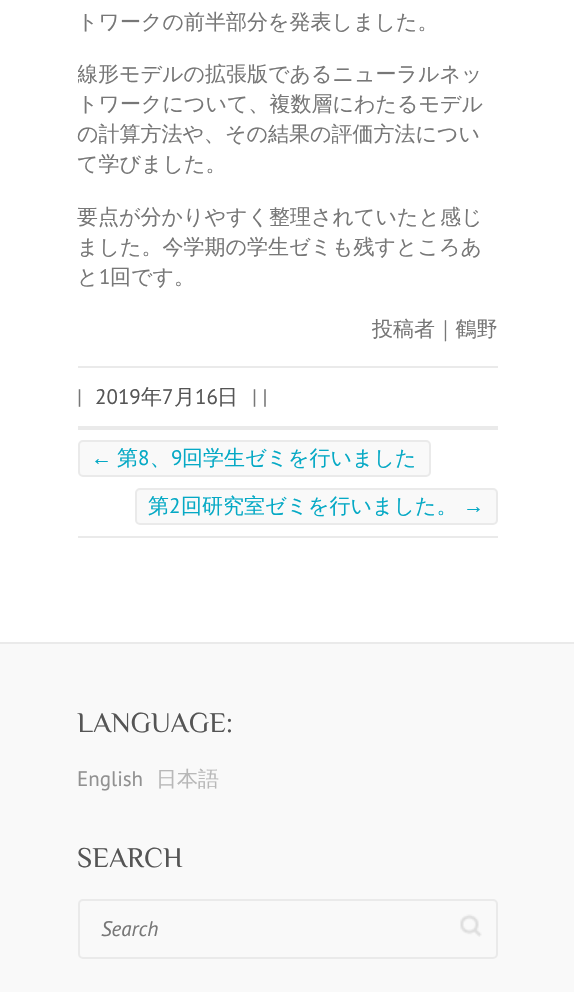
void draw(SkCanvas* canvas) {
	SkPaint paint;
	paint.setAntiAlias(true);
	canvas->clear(0xffffffff);
	SkFont f1(fontMgr->matchFamilyStyle("WenQuanYi Zen Hei", SkFontStyle(500, SkFontStyle::kNormal_Width, SkFontStyle::kUpright_Slant)), 21);
	f1.setSubpixel(true);
	paint.setColor(0xff777777);
	canvas->drawString("トワークの前半部分を発表しました。", 77, 29, f1, paint);
	canvas->save();
	canvas->clipRect(SkRect::MakeXYWH(78, 0, 420, 366));
	canvas->drawString("線形モデルの拡張版であるニューラルネッ", 77, 81, f1, paint);
	canvas->restore();
	canvas->drawString("トワークについて、複数層にわたるモデル", 77, 111, f1, paint);
	canvas->drawString("の計算方法や、その結果の評価方法につい", 77, 141, f1, paint);
	canvas->drawString("て学びました。", 77, 171, f1, paint);
	canvas->drawString("要点が分かりやすく整理されていたと感じ", 77, 224, f1, paint);
	canvas->drawString("ました。今学期の学生ゼミも残すところあ", 77, 254, f1, paint);
	canvas->drawString("と", 77, 284, f1, paint);
	SkFont f2(fontMgr->matchFamilyStyle("PT Sans", SkFontStyle::Normal()), 21);
	f2.setSubpixel(true);
	canvas->drawString("1", 99, 284, f2, paint);
	canvas->drawString("回です。", 110, 284, f1, paint);
	canvas->drawString("投稿者｜鶴野", 372, 336, f1, paint);
	paint.setColor(0xffeaeaea);
	canvas->drawRect(SkRect::MakeXYWH(78, 366, 420, 2), paint);
	canvas->drawRect(SkRect::MakeXYWH(78, 426, 420, 4), paint);
	paint.setColor(0xff777777);
	canvas->drawString("|", 77, 404, f2, paint);
	paint.setColor(0xff555555);
	canvas->drawString("2019", 95, 404, f2, paint);
	canvas->drawString("年", 141, 404, f1, paint);
	canvas->drawString("7", 162, 404, f2, paint);
	canvas->drawString("月", 174, 404, f1, paint);
	canvas->drawString("16", 195, 404, f2, paint);
	canvas->drawString("日", 217, 404, f1, paint);
	paint.setColor(0xff777777);
	canvas->drawString("| |", 252, 404, f2, paint);
	paint.setColor(0xffeaeaea);
	canvas->drawRect(SkRect::MakeXYWH(78, 536, 420, 2), paint);
	paint.setColor(0xfff9f9f9);
	canvas->drawRoundRect(SkRect::MakeXYWH(79, 441, 351, 35), 4, 4, paint);
	paint.setStroke(true);
	paint.setStrokeWidth(2);
	paint.setColor(0xffeaeaea);
	canvas->drawRoundRect(SkRect::MakeXYWH(79, 441, 351, 35), 4, 4, paint);
	SkFont f3(fontMgr->matchFamilyStyle("Liberation Sans", SkFontStyle::Normal()), 21);
	f3.setSubpixel(true);
	paint.setStroke(false);
	paint.setColor(0xff05a9c5);
	canvas->drawString("←", 91, 465, f3, paint);
	canvas->drawString("第", 117, 465, f1, paint);
	canvas->drawString("8", 138, 465, f2, paint);
	canvas->drawString("9", 171, 465, f2, paint);
	canvas->drawString("回学生ゼミを行いました", 182, 465, f1, paint);
	canvas->drawString("、", 150, 465, f1, paint);
	paint.setColor(0xfff9f9f9);
	canvas->drawRoundRect(SkRect::MakeXYWH(136, 489, 361, 35), 4, 4, paint);
	paint.setStroke(true);
	paint.setColor(0xffeaeaea);
	canvas->drawRoundRect(SkRect::MakeXYWH(136, 489, 361, 35), 4, 4, paint);
	paint.setStroke(false);
	paint.setColor(0xff05a9c5);
	canvas->drawString("第", 148, 513, f1, paint);
	canvas->drawString("2", 169, 513, f2, paint);
	canvas->drawString("回研究室ゼミを行いました。", 181, 513, f1, paint);
	canvas->drawString("→", 463, 513, f3, paint);
	paint.setColor(0xfff9f9f9);
	canvas->drawRect(SkRect::MakeXYWH(0, 644, 574, 348), paint);
	paint.setColor(0xffeaeaea);
	canvas->drawRect(SkRect::MakeXYWH(0, 642, 574, 2), paint);
	SkFont f4(fontMgr->matchFamilyStyle("Philosopher", SkFontStyle::Normal()), 28.5);
	f4.setSubpixel(true);
	paint.setColor(0xff555555);
	canvas->drawString("LANGUAGE:", 77, 732, f4, paint);
	paint.setColor(0xff919191);
	canvas->drawString("English", 77, 786, f2, paint);
	paint.setColor(0xffb8b8b8);
	canvas->drawString("日本語", 156, 786, f1, paint);
	paint.setColor(0xff555555);
	canvas->drawString("SEARCH", 77, 867, f4, paint);
	canvas->drawImageRect(SkImages::DeferredFromEncodedData(SkData::MakeFromFileName("img1.png")), SkRect::MakeXYWH(460, 914, 22, 23), SkSamplingOptions());
	paint.setStroke(true);
	paint.setColor(0xffeaeaea);
	canvas->drawRoundRect(SkRect::MakeXYWH(79, 900, 418, 58), 4, 4, paint);
	SkFont f5(fontMgr->matchFamilyStyle("PT Sans", SkFontStyle::Italic()), 21);
	f5.setSubpixel(true);
	paint.setStroke(false);
	paint.setColor(0xff777777);
	canvas->drawString("Search", 101, 936, f5, paint);
}
